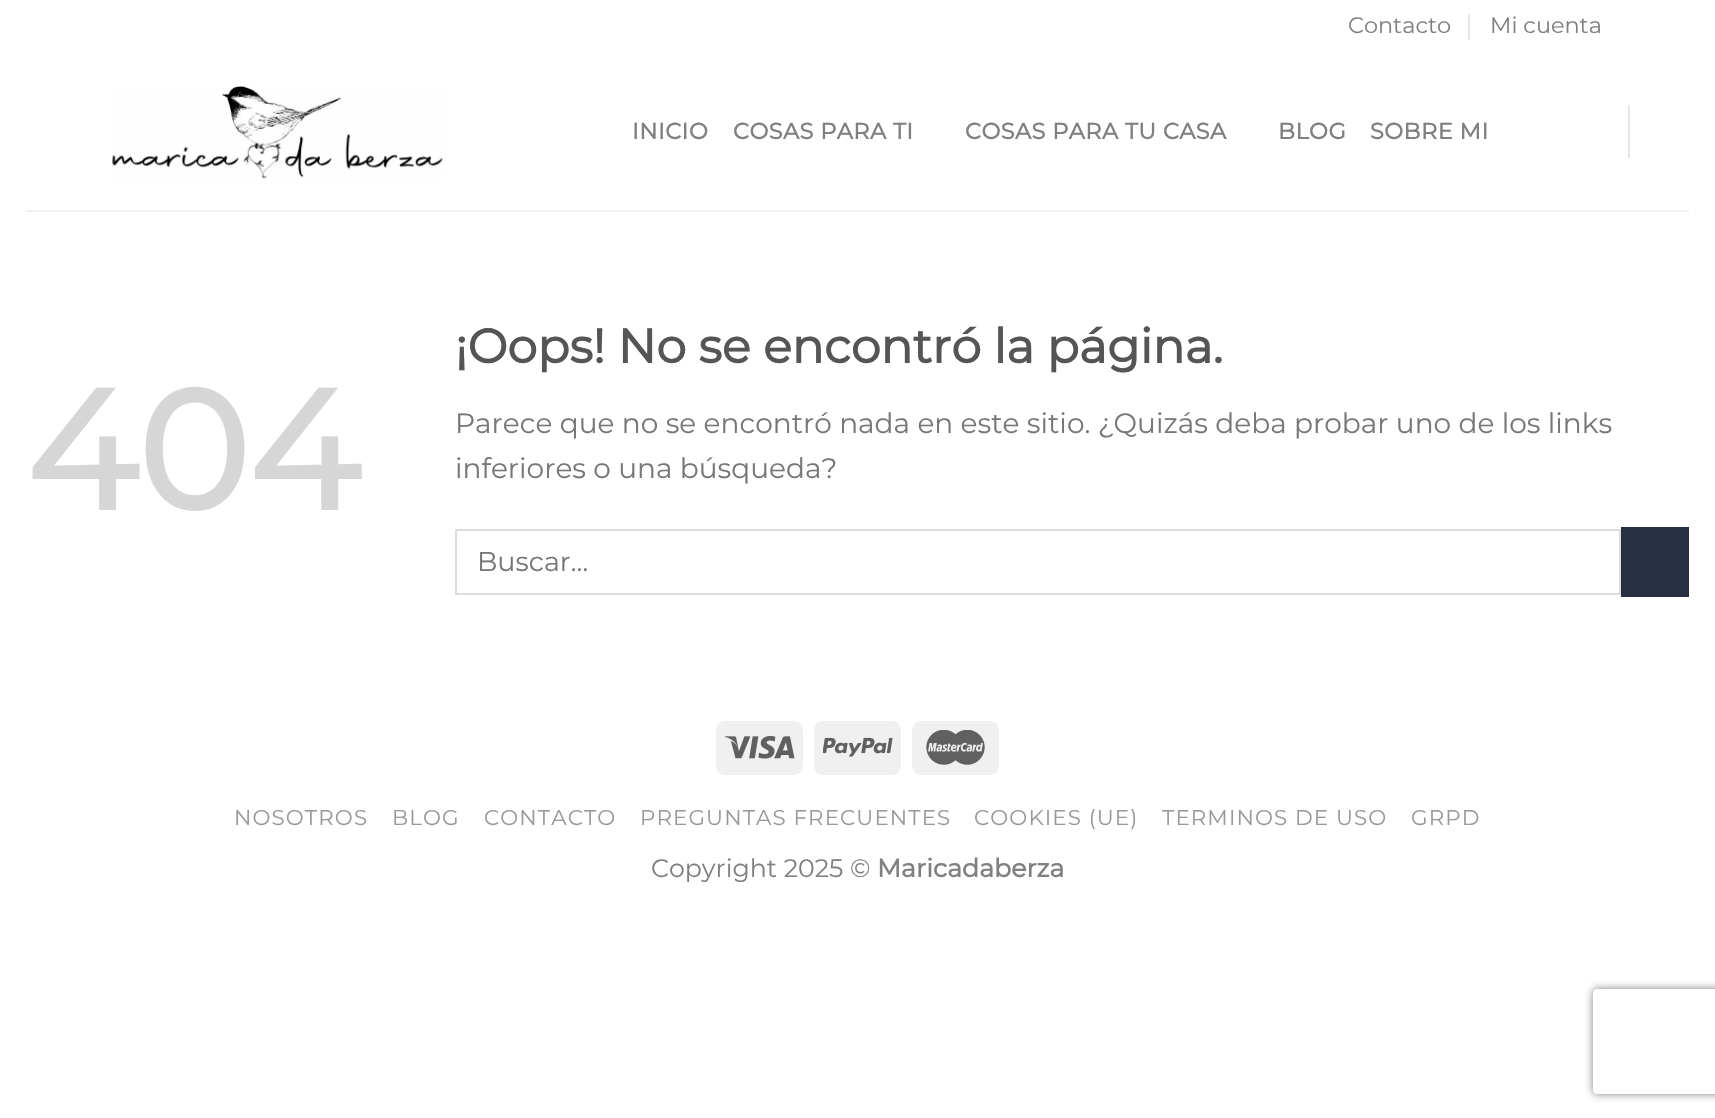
void draw(SkCanvas* canvas) {
	SkPaint paint;
	paint.setAntiAlias(true);
	auto spacedText = [&](const char* s, float x, float y, const SkFont& font, const SkPaint& ink, float letter, float word) {
		std::vector<SkGlyphID> glyphs(font.countText(s, strlen(s), SkTextEncoding::kUTF8));
		std::vector<float> xs(glyphs.size());
		font.textToGlyphs(s, strlen(s), SkTextEncoding::kUTF8, glyphs);
		font.getXPos(glyphs, xs, x);
		float extra = 0;
		for (size_t i = 0; i < glyphs.size(); i++) {
			xs[i] += extra;
			extra += letter + word * (glyphs[i] == font.unicharToGlyph(' '));
		}
		canvas->drawTextBlob(SkTextBlob::MakeFromPosHGlyphs(glyphs, xs, y, font), 0, 0, ink);
	};
	auto svgPath = [&](const char* data, bool evenOdd = false) {
		SkPath result = *SkParsePath::FromSVGString(data);
		if (evenOdd) result.setFillType(SkPathFillType::kEvenOdd);
		return result;
	};
	canvas->clear(0xffffffff);
	SkFont f1(fontMgr->matchFamilyStyle("Montserrat", SkFontStyle(100, SkFontStyle::kNormal_Width, SkFontStyle::kUpright_Slant)), 22.4);
	f1.setSubpixel(true);
	paint.setColor(0xff808080);
	canvas->drawString("Contacto", 1348, 33, f1, paint);
	paint.setColor(0xffe6e6e6);
	canvas->drawRect(SkRect::MakeXYWH(1468, 14, 2, 26), paint);
	paint.setColor(0xff808080);
	canvas->drawString("Mi cuenta", 1490, 33, f1, paint);
	canvas->drawImageRect(SkImages::DeferredFromEncodedData(SkData::MakeFromFileName("img1.png")), SkRect::MakeXYWH(112, 86, 331, 93), SkSamplingOptions());
	SkFont f2(fontMgr->matchFamilyStyle("Montserrat", SkFontStyle::Bold()), 22.4);
	f2.setSubpixel(true);
	spacedText("INICIO", 632, 139, f2, paint, 0.5, 0);
	spacedText("COSAS PARA TI", 733, 139, f2, paint, 0.5, 0);
	spacedText("COSAS PARA TU CASA", 965, 139, f2, paint, 0.5, 0);
	spacedText("BLOG", 1278, 139, f2, paint, 0.5, 0);
	spacedText("SOBRE MI", 1370, 139, f2, paint, 0.5, 0);
	paint.setColor(0xffe6e6e6);
	canvas->drawRect(SkRect::MakeXYWH(1628, 105, 2, 53), paint);
	paint.setColor(0xfff1f1f1);
	canvas->drawRect(SkRect::MakeXYWH(26, 210, 1663, 2), paint);
	SkFont f3(fontMgr->matchFamilyStyle("Montserrat", SkFontStyle::Bold()), 168);
	f3.setSubpixel(true);
	paint.setColor(0xffd6d6d6);
	canvas->drawString("404", 26, 510, f3, paint);
	SkFont f4(fontMgr->matchFamilyStyle("Montserrat", SkFontStyle::Bold()), 47.6);
	f4.setSubpixel(true);
	paint.setColor(0xff555555);
	canvas->drawString("¡Oops! No se encontró la página.", 455, 363, f4, paint);
	SkFont f5(fontMgr->matchFamilyStyle("Montserrat", SkFontStyle(100, SkFontStyle::kNormal_Width, SkFontStyle::kUpright_Slant)), 28);
	f5.setSubpixel(true);
	paint.setColor(0xff777777);
	canvas->drawString("Parece que no se encontró nada en este sitio. ¿Quizás deba probar uno de los links", 455, 433, f5, paint);
	canvas->drawString("inferiores o una búsqueda?", 455, 478, f5, paint);
	paint.setStroke(true);
	paint.setStrokeWidth(2);
	paint.setColor(0xffdddddd);
	canvas->drawRect(SkRect::MakeXYWH(456, 530, 1164, 64), paint);
	SkFont f6(fontMgr->matchFamilyStyle("Montserrat", SkFontStyle(100, SkFontStyle::kNormal_Width, SkFontStyle::kUpright_Slant)), 27);
	f6.setSubpixel(true);
	paint.setStroke(false);
	paint.setColor(0xff777777);
	canvas->drawString("Buscar…", 477, 571, f6, paint);
	paint.setColor(0xff283044);
	canvas->drawRect(SkRect::MakeXYWH(1622, 528, 66, 68), paint);
	paint.setStroke(true);
	paint.setColor(0xff262e41);
	canvas->drawRect(SkRect::MakeXYWH(1622, 528, 66, 68), paint);
	paint.setStroke(false);
	paint.setColor(0xfff0f0f0);
	canvas->drawRoundRect(SkRect::MakeXYWH(716, 721, 87, 54), 9, 9, paint);
	canvas->drawImageRect(SkImages::DeferredFromEncodedData(SkData::MakeFromFileName("img2.png")), SkRect::MakeXYWH(725, 735, 70, 24), SkSamplingOptions());
	canvas->drawRoundRect(SkRect::MakeXYWH(814, 721, 87, 54), 9, 9, paint);
	canvas->drawImageRect(SkImages::DeferredFromEncodedData(SkData::MakeFromFileName("img3.png")), SkRect::MakeXYWH(823, 737, 70, 20), SkSamplingOptions());
	canvas->drawRoundRect(SkRect::MakeXYWH(912, 721, 87, 54), 9, 9, paint);
	canvas->drawImageRect(SkImages::DeferredFromEncodedData(SkData::MakeFromFileName("img4.png")), SkRect::MakeXYWH(926, 730, 59, 35), SkSamplingOptions());
	SkFont f7(fontMgr->matchFamilyStyle("Montserrat", SkFontStyle(100, SkFontStyle::kNormal_Width, SkFontStyle::kUpright_Slant)), 21.4);
	f7.setSubpixel(true);
	paint.setColor(0xff999999);
	spacedText("NOSOTROS", 234, 825, f7, paint, 1.1, 0);
	spacedText("BLOG", 392, 825, f7, paint, 1.1, 0);
	spacedText("CONTACTO", 484, 825, f7, paint, 1.1, 0);
	spacedText("PREGUNTAS FRECUENTES", 640, 825, f7, paint, 1.1, 0);
	spacedText("COOKIES (UE)", 974, 825, f7, paint, 1.1, 0);
	spacedText("TERMINOS DE USO", 1162, 825, f7, paint, 1.1, 0);
	spacedText("GRPD", 1411, 825, f7, paint, 1.1, 0);
	SkFont f8(fontMgr->matchFamilyStyle("Montserrat", SkFontStyle(100, SkFontStyle::kNormal_Width, SkFontStyle::kUpright_Slant)), 25.25);
	f8.setSubpixel(true);
	paint.setColor(0xff808080);
	canvas->drawString("Copyright 2025 ©", 651, 877, f8, paint);
	SkFont f9(fontMgr->matchFamilyStyle("Montserrat", SkFontStyle::Bold()), 25.25);
	f9.setSubpixel(true);
	canvas->drawString("Maricadaberza", 877, 877, f9, paint);
	canvas->save();
	canvas->clipPath(svgPath("M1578 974H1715V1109H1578ZM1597 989H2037C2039 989 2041 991 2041 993V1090C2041 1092 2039 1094 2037 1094H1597C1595 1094 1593 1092 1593 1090V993C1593 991 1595 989 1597 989Z", true), true);
	paint.setMaskFilter(SkMaskFilter::MakeBlur(kNormal_SkBlurStyle, 4.5));
	canvas->drawRoundRect(SkRect::MakeXYWH(1593, 989, 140, 105), 4, 4, paint);
	paint.setMaskFilter(nullptr);
	canvas->restore();
}
